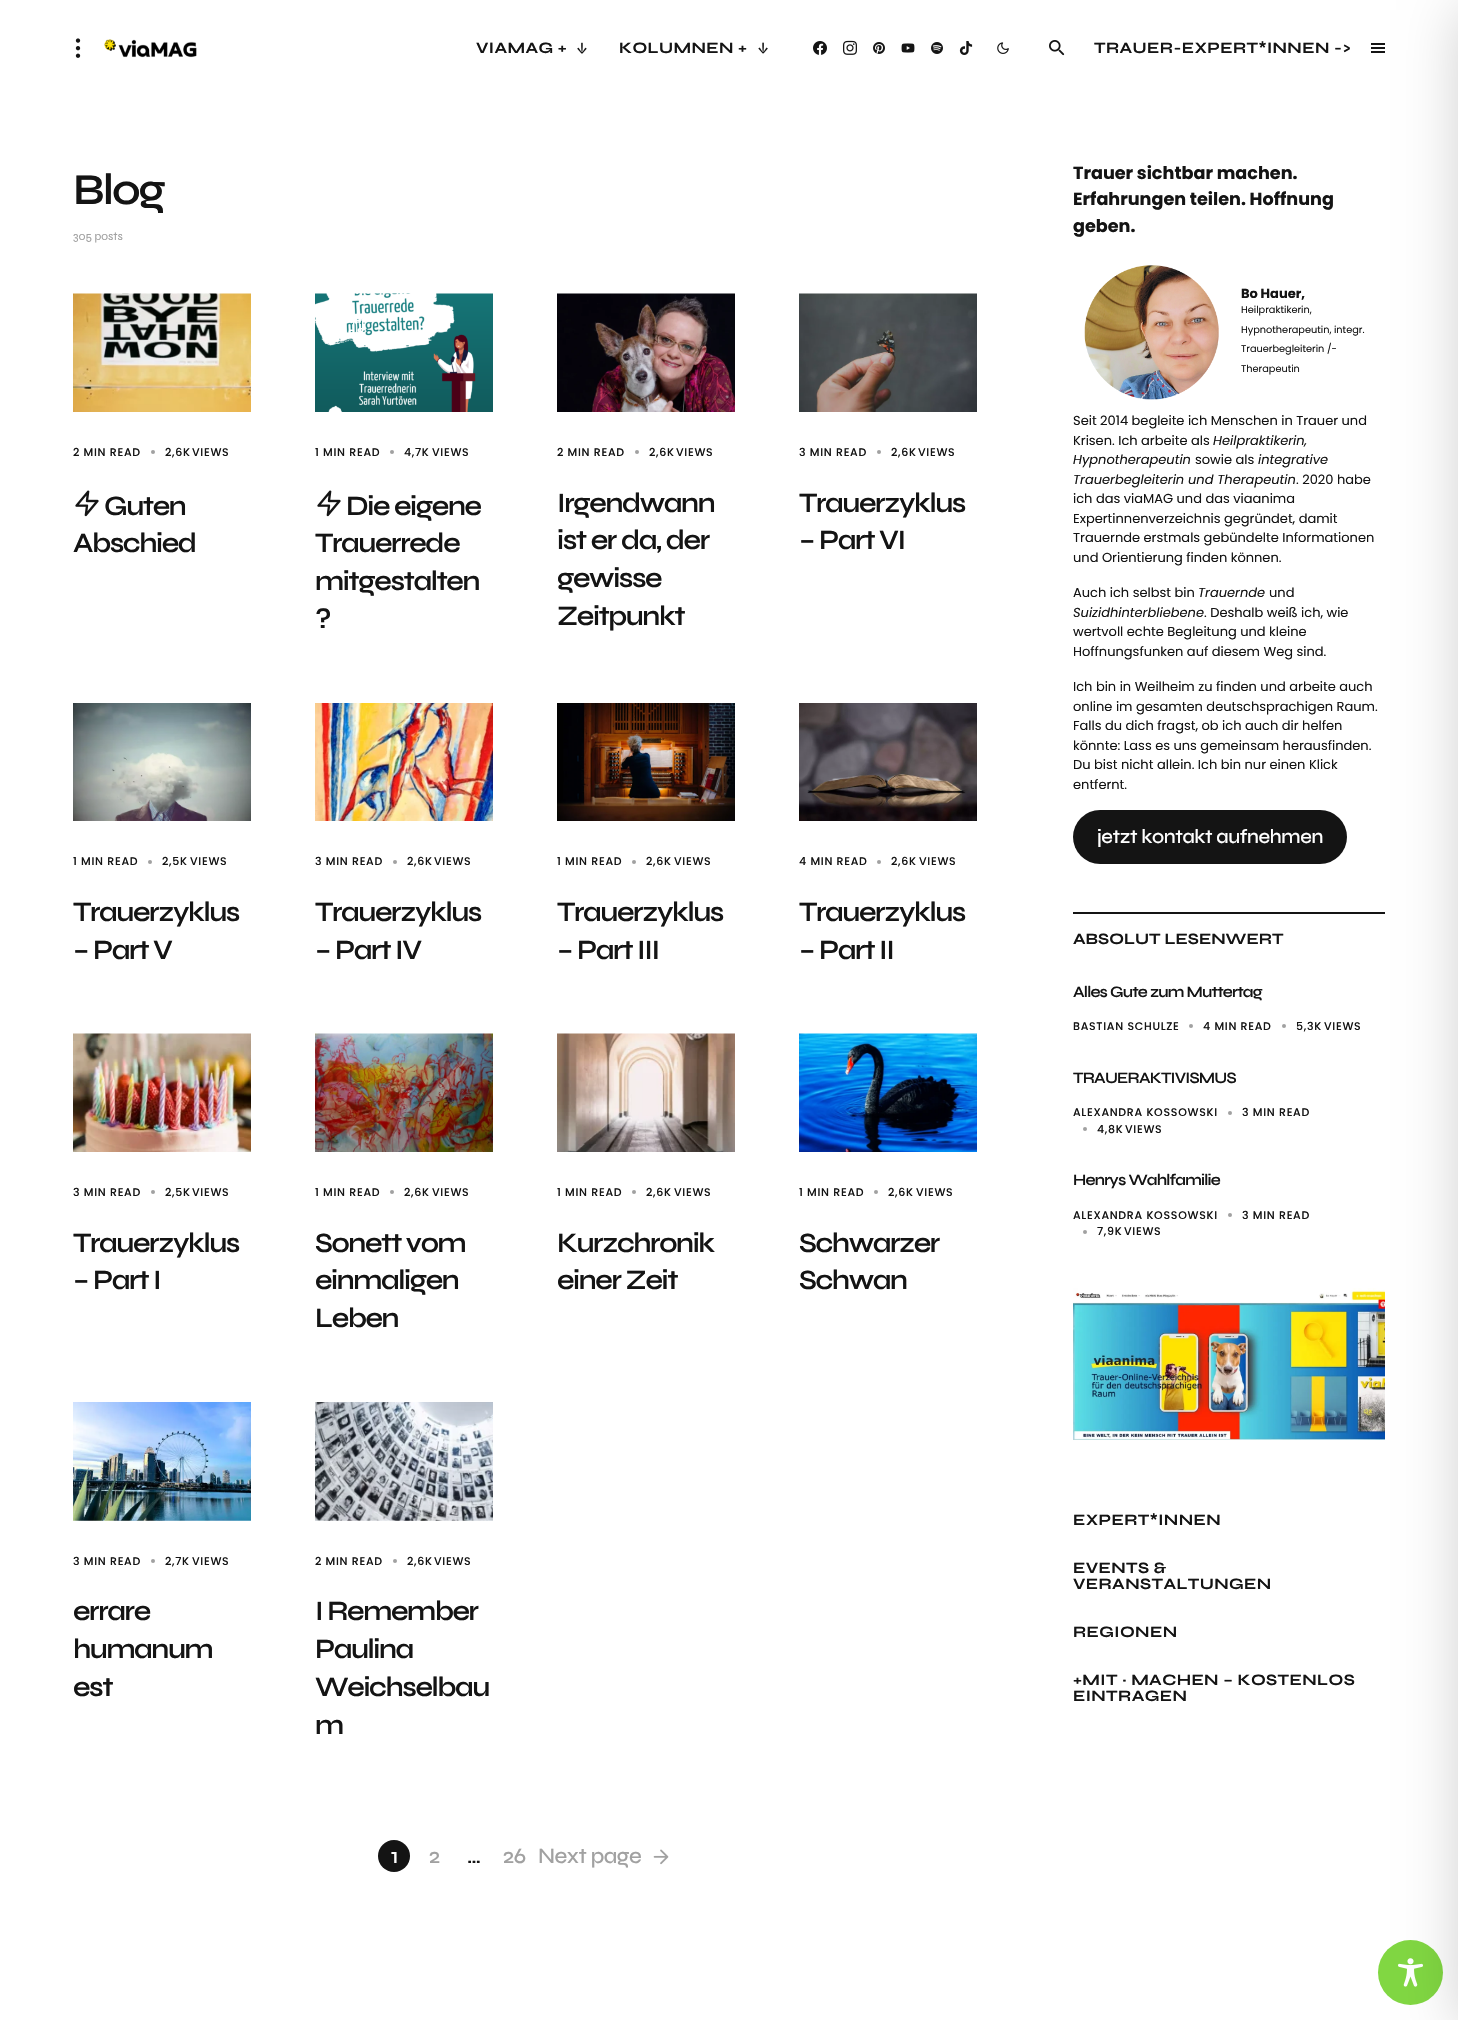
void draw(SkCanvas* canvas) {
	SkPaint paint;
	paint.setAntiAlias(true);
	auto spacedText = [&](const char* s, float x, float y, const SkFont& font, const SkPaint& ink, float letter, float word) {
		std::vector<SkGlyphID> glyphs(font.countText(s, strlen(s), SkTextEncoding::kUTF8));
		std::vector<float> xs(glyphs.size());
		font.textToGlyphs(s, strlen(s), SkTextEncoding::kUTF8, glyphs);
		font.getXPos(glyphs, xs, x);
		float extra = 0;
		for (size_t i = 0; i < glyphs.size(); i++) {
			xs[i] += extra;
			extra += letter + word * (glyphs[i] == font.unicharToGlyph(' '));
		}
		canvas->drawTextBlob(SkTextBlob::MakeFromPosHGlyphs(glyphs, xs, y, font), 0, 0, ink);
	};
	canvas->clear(0xffffffff);
	canvas->drawImageRect(SkImages::DeferredFromEncodedData(SkData::MakeFromFileName("img1.png")), SkRect::MakeXYWH(75, 38, 6, 20), SkSamplingOptions());
	canvas->drawImageRect(SkImages::DeferredFromEncodedData(SkData::MakeFromFileName("img2.png")), SkRect::MakeXYWH(104, 39, 93, 19), SkSamplingOptions());
	SkFont f1(fontMgr->matchFamilyStyle("Syne", SkFontStyle::Bold()), 16);
	f1.setSubpixel(true);
	paint.setColor(0xff141414);
	spacedText("VIAMAG +", 476, 53, f1, paint, 0.4, 0);
	canvas->drawImageRect(SkImages::DeferredFromEncodedData(SkData::MakeFromFileName("img3.png")), SkRect::MakeXYWH(577, 42, 10, 12), SkSamplingOptions());
	spacedText("KOLUMNEN +", 619, 53, f1, paint, 0.4, 0);
	canvas->drawImageRect(SkImages::DeferredFromEncodedData(SkData::MakeFromFileName("img4.png")), SkRect::MakeXYWH(758, 42, 10, 12), SkSamplingOptions());
	canvas->drawImageRect(SkImages::DeferredFromEncodedData(SkData::MakeFromFileName("img5.png")), SkRect::MakeXYWH(813, 41, 14, 14), SkSamplingOptions());
	canvas->drawImageRect(SkImages::DeferredFromEncodedData(SkData::MakeFromFileName("img6.png")), SkRect::MakeXYWH(843, 40, 14, 15), SkSamplingOptions());
	canvas->drawImageRect(SkImages::DeferredFromEncodedData(SkData::MakeFromFileName("img7.png")), SkRect::MakeXYWH(873, 42, 12, 12), SkSamplingOptions());
	canvas->drawImageRect(SkImages::DeferredFromEncodedData(SkData::MakeFromFileName("img8.png")), SkRect::MakeXYWH(901, 43, 14, 10), SkSamplingOptions());
	canvas->drawImageRect(SkImages::DeferredFromEncodedData(SkData::MakeFromFileName("img9.png")), SkRect::MakeXYWH(931, 42, 12, 12), SkSamplingOptions());
	canvas->drawImageRect(SkImages::DeferredFromEncodedData(SkData::MakeFromFileName("img10.png")), SkRect::MakeXYWH(959, 41, 14, 14), SkSamplingOptions());
	canvas->drawImageRect(SkImages::DeferredFromEncodedData(SkData::MakeFromFileName("img11.png")), SkRect::MakeXYWH(997, 42, 12, 12), SkSamplingOptions());
	canvas->drawImageRect(SkImages::DeferredFromEncodedData(SkData::MakeFromFileName("img12.png")), SkRect::MakeXYWH(1049, 40, 16, 16), SkSamplingOptions());
	spacedText("TRAUER-EXPERT*INNEN ->", 1094, 53, f1, paint, 0.4, 0);
	canvas->drawRect(SkRect::MakeXYWH(1371, 43, 14, 2), paint);
	canvas->drawRect(SkRect::MakeXYWH(1371, 47, 14, 2), paint);
	canvas->drawRect(SkRect::MakeXYWH(1371, 51, 14, 2), paint);
	SkFont f2(fontMgr->matchFamilyStyle("Syne", SkFontStyle(600, SkFontStyle::kNormal_Width, SkFontStyle::kUpright_Slant)), 44);
	f2.setSubpixel(true);
	spacedText("Blog", 73, 204, f2, paint, -2, 0);
	SkFont f3(fontMgr->matchFamilyStyle("Syne", SkFontStyle::Normal()), 12);
	f3.setSubpixel(true);
	paint.setColor(0xffa1a1a1);
	canvas->drawString("305 posts", 73, 240, f3, paint);
	canvas->drawImageRect(SkImages::DeferredFromEncodedData(SkData::MakeFromFileName("img13.png")), SkRect::MakeXYWH(73, 293, 178, 119), SkSamplingOptions());
	SkFont f4(fontMgr->matchFamilyStyle("Poppins", SkFontStyle(500, SkFontStyle::kNormal_Width, SkFontStyle::kUpright_Slant)), 11);
	f4.setSubpixel(true);
	paint.setColor(0xff141414);
	spacedText("2 MIN READ", 73, 456, f4, paint, 0.7, 0);
	paint.setColor(0xffa1a1a1);
	canvas->drawCircle(153, 452, 2, paint);
	paint.setColor(0xff141414);
	spacedText("2,6K", 165, 456, f4, paint, 0.7, 0);
	spacedText("VIEWS", 192, 456, f4, paint, 0.7, 0);
	canvas->drawImageRect(SkImages::DeferredFromEncodedData(SkData::MakeFromFileName("img14.png")), SkRect::MakeXYWH(75, 490, 24, 27), SkSamplingOptions());
	SkFont f5(fontMgr->matchFamilyStyle("Syne", SkFontStyle(600, SkFontStyle::kNormal_Width, SkFontStyle::kUpright_Slant)), 28);
	f5.setSubpixel(true);
	spacedText("Guten", 104, 515, f5, paint, -1.4, 0);
	spacedText("Abschied", 73, 552, f5, paint, -1.4, 0);
	canvas->drawImageRect(SkImages::DeferredFromEncodedData(SkData::MakeFromFileName("img15.png")), SkRect::MakeXYWH(315, 293, 178, 119), SkSamplingOptions());
	canvas->drawImageRect(SkImages::DeferredFromEncodedData(SkData::MakeFromFileName("img16.png")), SkRect::MakeXYWH(348, 319, 16, 14), SkSamplingOptions());
	spacedText("1 MIN READ", 315, 456, f4, paint, 0.7, 0);
	paint.setColor(0xffa1a1a1);
	canvas->drawCircle(392, 452, 2, paint);
	paint.setColor(0xff141414);
	spacedText("4,7K", 404, 456, f4, paint, 0.7, 0);
	spacedText("VIEWS", 432, 456, f4, paint, 0.7, 0);
	canvas->drawImageRect(SkImages::DeferredFromEncodedData(SkData::MakeFromFileName("img14.png")), SkRect::MakeXYWH(317, 490, 24, 27), SkSamplingOptions());
	spacedText("Die eigene", 346, 515, f5, paint, -1.4, 0);
	spacedText("Trauerrede", 315, 552, f5, paint, -1.4, 0);
	spacedText("mitgestalten", 315, 590, f5, paint, -1.4, 0);
	spacedText("?", 315, 628, f5, paint, -1.4, 0);
	canvas->drawImageRect(SkImages::DeferredFromEncodedData(SkData::MakeFromFileName("img17.png")), SkRect::MakeXYWH(557, 293, 178, 119), SkSamplingOptions());
	spacedText("2 MIN READ", 557, 456, f4, paint, 0.7, 0);
	paint.setColor(0xffa1a1a1);
	canvas->drawCircle(637, 452, 2, paint);
	paint.setColor(0xff141414);
	spacedText("2,6K", 649, 456, f4, paint, 0.7, 0);
	spacedText("VIEWS", 676, 456, f4, paint, 0.7, 0);
	spacedText("Irgendwann", 557, 512, f5, paint, -1.4, 0);
	spacedText("ist er da, der", 557, 549, f5, paint, -1.4, 0);
	spacedText("gewisse", 557, 587, f5, paint, -1.4, 0);
	spacedText("Zeitpunkt", 557, 625, f5, paint, -1.4, 0);
	canvas->drawImageRect(SkImages::DeferredFromEncodedData(SkData::MakeFromFileName("img18.png")), SkRect::MakeXYWH(799, 293, 178, 119), SkSamplingOptions());
	spacedText("3 MIN READ", 799, 456, f4, paint, 0.7, 0);
	paint.setColor(0xffa1a1a1);
	canvas->drawCircle(879, 452, 2, paint);
	paint.setColor(0xff141414);
	spacedText("2,6K", 891, 456, f4, paint, 0.7, 0);
	spacedText("VIEWS", 918, 456, f4, paint, 0.7, 0);
	spacedText("Trauerzyklus", 799, 512, f5, paint, -1.4, 0);
	spacedText("– Part VI", 799, 549, f5, paint, -1.4, 0);
	canvas->drawImageRect(SkImages::DeferredFromEncodedData(SkData::MakeFromFileName("img19.png")), SkRect::MakeXYWH(73, 703, 178, 118), SkSamplingOptions());
	spacedText("1 MIN READ", 73, 865, f4, paint, 0.7, 0);
	paint.setColor(0xffa1a1a1);
	canvas->drawCircle(150, 862, 2, paint);
	paint.setColor(0xff141414);
	spacedText("2,5K", 162, 865, f4, paint, 0.7, 0);
	spacedText("VIEWS", 190, 865, f4, paint, 0.7, 0);
	spacedText("Trauerzyklus", 73, 921, f5, paint, -1.4, 0);
	spacedText("– Part V", 73, 959, f5, paint, -1.4, 0);
	canvas->drawImageRect(SkImages::DeferredFromEncodedData(SkData::MakeFromFileName("img20.png")), SkRect::MakeXYWH(315, 703, 178, 118), SkSamplingOptions());
	spacedText("3 MIN READ", 315, 865, f4, paint, 0.7, 0);
	paint.setColor(0xffa1a1a1);
	canvas->drawCircle(395, 862, 2, paint);
	paint.setColor(0xff141414);
	spacedText("2,6K", 407, 865, f4, paint, 0.7, 0);
	spacedText("VIEWS", 434, 865, f4, paint, 0.7, 0);
	spacedText("Trauerzyklus", 315, 921, f5, paint, -1.4, 0);
	spacedText("– Part IV", 315, 959, f5, paint, -1.4, 0);
	canvas->drawImageRect(SkImages::DeferredFromEncodedData(SkData::MakeFromFileName("img21.png")), SkRect::MakeXYWH(557, 703, 178, 118), SkSamplingOptions());
	spacedText("1 MIN READ", 557, 865, f4, paint, 0.7, 0);
	paint.setColor(0xffa1a1a1);
	canvas->drawCircle(634, 862, 2, paint);
	paint.setColor(0xff141414);
	spacedText("2,6K", 646, 865, f4, paint, 0.7, 0);
	spacedText("VIEWS", 674, 865, f4, paint, 0.7, 0);
	spacedText("Trauerzyklus", 557, 921, f5, paint, -1.4, 0);
	spacedText("– Part III", 557, 959, f5, paint, -1.4, 0);
	canvas->drawImageRect(SkImages::DeferredFromEncodedData(SkData::MakeFromFileName("img22.png")), SkRect::MakeXYWH(799, 703, 178, 118), SkSamplingOptions());
	spacedText("4 MIN READ", 799, 865, f4, paint, 0.7, 0);
	paint.setColor(0xffa1a1a1);
	canvas->drawCircle(879, 862, 2, paint);
	paint.setColor(0xff141414);
	spacedText("2,6K", 891, 865, f4, paint, 0.7, 0);
	spacedText("VIEWS", 919, 865, f4, paint, 0.7, 0);
	spacedText("Trauerzyklus", 799, 921, f5, paint, -1.4, 0);
	spacedText("– Part II", 799, 959, f5, paint, -1.4, 0);
	canvas->drawImageRect(SkImages::DeferredFromEncodedData(SkData::MakeFromFileName("img23.png")), SkRect::MakeXYWH(73, 1033, 178, 119), SkSamplingOptions());
	spacedText("3 MIN READ", 73, 1196, f4, paint, 0.7, 0);
	paint.setColor(0xffa1a1a1);
	canvas->drawCircle(153, 1192, 2, paint);
	paint.setColor(0xff141414);
	spacedText("2,5K", 165, 1196, f4, paint, 0.7, 0);
	spacedText("VIEWS", 192, 1196, f4, paint, 0.7, 0);
	spacedText("Trauerzyklus", 73, 1252, f5, paint, -1.4, 0);
	spacedText("– Part I", 73, 1289, f5, paint, -1.4, 0);
	canvas->drawImageRect(SkImages::DeferredFromEncodedData(SkData::MakeFromFileName("img24.png")), SkRect::MakeXYWH(315, 1033, 178, 119), SkSamplingOptions());
	spacedText("1 MIN READ", 315, 1196, f4, paint, 0.7, 0);
	paint.setColor(0xffa1a1a1);
	canvas->drawCircle(392, 1192, 2, paint);
	paint.setColor(0xff141414);
	spacedText("2,6K", 404, 1196, f4, paint, 0.7, 0);
	spacedText("VIEWS", 432, 1196, f4, paint, 0.7, 0);
	spacedText("Sonett vom", 315, 1252, f5, paint, -1.4, 0);
	spacedText("einmaligen", 315, 1289, f5, paint, -1.4, 0);
	spacedText("Leben", 315, 1327, f5, paint, -1.4, 0);
	canvas->drawImageRect(SkImages::DeferredFromEncodedData(SkData::MakeFromFileName("img25.png")), SkRect::MakeXYWH(557, 1033, 178, 119), SkSamplingOptions());
	spacedText("1 MIN READ", 557, 1196, f4, paint, 0.7, 0);
	paint.setColor(0xffa1a1a1);
	canvas->drawCircle(634, 1192, 2, paint);
	paint.setColor(0xff141414);
	spacedText("2,6K", 646, 1196, f4, paint, 0.7, 0);
	spacedText("VIEWS", 674, 1196, f4, paint, 0.7, 0);
	spacedText("Kurzchronik", 557, 1252, f5, paint, -1.4, 0);
	spacedText("einer Zeit", 557, 1289, f5, paint, -1.4, 0);
	canvas->drawImageRect(SkImages::DeferredFromEncodedData(SkData::MakeFromFileName("img26.png")), SkRect::MakeXYWH(799, 1033, 178, 119), SkSamplingOptions());
	spacedText("1 MIN READ", 799, 1196, f4, paint, 0.7, 0);
	paint.setColor(0xffa1a1a1);
	canvas->drawCircle(876, 1192, 2, paint);
	paint.setColor(0xff141414);
	spacedText("2,6K", 888, 1196, f4, paint, 0.7, 0);
	spacedText("VIEWS", 916, 1196, f4, paint, 0.7, 0);
	spacedText("Schwarzer", 799, 1252, f5, paint, -1.4, 0);
	spacedText("Schwan", 799, 1289, f5, paint, -1.4, 0);
	canvas->drawImageRect(SkImages::DeferredFromEncodedData(SkData::MakeFromFileName("img27.png")), SkRect::MakeXYWH(73, 1402, 178, 119), SkSamplingOptions());
	spacedText("3 MIN READ", 73, 1565, f4, paint, 0.7, 0);
	paint.setColor(0xffa1a1a1);
	canvas->drawCircle(153, 1561, 2, paint);
	paint.setColor(0xff141414);
	spacedText("2,7K", 165, 1565, f4, paint, 0.7, 0);
	spacedText("VIEWS", 192, 1565, f4, paint, 0.7, 0);
	spacedText("errare", 73, 1620, f5, paint, -1.4, 0);
	spacedText("humanum", 73, 1658, f5, paint, -1.4, 0);
	spacedText("est", 73, 1696, f5, paint, -1.4, 0);
	canvas->drawImageRect(SkImages::DeferredFromEncodedData(SkData::MakeFromFileName("img28.png")), SkRect::MakeXYWH(315, 1402, 178, 119), SkSamplingOptions());
	spacedText("2 MIN READ", 315, 1565, f4, paint, 0.7, 0);
	paint.setColor(0xffa1a1a1);
	canvas->drawCircle(395, 1561, 2, paint);
	paint.setColor(0xff141414);
	spacedText("2,6K", 407, 1565, f4, paint, 0.7, 0);
	spacedText("VIEWS", 434, 1565, f4, paint, 0.7, 0);
	spacedText("I Remember", 315, 1620, f5, paint, -1.4, 0);
	spacedText("Paulina", 315, 1658, f5, paint, -1.4, 0);
	spacedText("Weichselbau", 315, 1696, f5, paint, -1.4, 0);
	spacedText("m", 315, 1734, f5, paint, -1.4, 0);
	canvas->drawCircle(394, 1856, 16, paint);
	SkFont f6(fontMgr->matchFamilyStyle("Syne", SkFontStyle(500, SkFontStyle::kNormal_Width, SkFontStyle::kUpright_Slant)), 22);
	f6.setSubpixel(true);
	paint.setColor(0xffffffff);
	spacedText("1", 391, 1863, f6, paint, -0.5, 0);
	paint.setColor(0xffa1a1a1);
	spacedText("2", 429, 1863, f6, paint, -0.5, 0);
	paint.setColor(0xff141414);
	spacedText("…", 467, 1863, f6, paint, -0.5, 0);
	paint.setColor(0xffa1a1a1);
	spacedText("26", 503, 1863, f6, paint, -0.5, 0);
	spacedText("Next page", 538, 1863, f6, paint, -0.5, 0);
	canvas->drawImageRect(SkImages::DeferredFromEncodedData(SkData::MakeFromFileName("img29.png")), SkRect::MakeXYWH(653, 1849, 16, 16), SkSamplingOptions());
	SkFont f7(fontMgr->matchFamilyStyle("Poppins", SkFontStyle::Bold()), 17.6);
	f7.setSubpixel(true);
	paint.setColor(0xff141414);
	canvas->drawString("Trauer sichtbar machen.", 1073, 179, f7, paint);
	canvas->drawString("Erfahrungen teilen. Hoffnung", 1073, 205, f7, paint);
	canvas->drawString("geben.", 1073, 232, f7, paint);
	canvas->drawImageRect(SkImages::DeferredFromEncodedData(SkData::MakeFromFileName("img30.png")), SkRect::MakeXYWH(1084, 265, 135, 135), SkSamplingOptions());
	SkFont f8(fontMgr->matchFamilyStyle("Poppins", SkFontStyle::Bold()), 13);
	f8.setSubpixel(true);
	canvas->drawString("Bo Hauer,", 1241, 298, f8, paint);
	SkFont f9(fontMgr->matchFamilyStyle("Poppins", SkFontStyle::Normal()), 9.75);
	f9.setSubpixel(true);
	canvas->drawString("Heilpraktikerin,", 1241, 313, f9, paint);
	canvas->drawString("Hypnotherapeutin, integr.", 1241, 333, f9, paint);
	canvas->drawString("Trauerbegleiterin /-", 1241, 352, f9, paint);
	canvas->drawString("Therapeutin", 1241, 372, f9, paint);
	SkFont f10(fontMgr->matchFamilyStyle("Poppins", SkFontStyle::Normal()), 13);
	f10.setSubpixel(true);
	canvas->drawString("Seit 2014 begleite ich Menschen in Trauer und", 1073, 425, f10, paint);
	canvas->drawString("Krisen. Ich arbeite als", 1073, 445, f10, paint);
	SkFont f11(fontMgr->matchFamilyStyle("Poppins", SkFontStyle::Italic()), 13);
	f11.setSubpixel(true);
	canvas->drawString("Heilpraktikerin,", 1213, 445, f11, paint);
	canvas->drawString("Hypnotherapeutin", 1073, 464, f11, paint);
	canvas->drawString("sowie als", 1195, 464, f10, paint);
	canvas->drawString("integrative", 1258, 464, f11, paint);
	canvas->drawString("Trauerbegleiterin und Therapeutin", 1073, 484, f11, paint);
	canvas->drawString(". 2020 habe", 1296, 484, f10, paint);
	canvas->drawString("ich das viaMAG und das viaanima", 1073, 503, f10, paint);
	canvas->drawString("Expertinnenverzeichnis gegründet, damit", 1073, 523, f10, paint);
	canvas->drawString("Trauernde erstmals gebündelte Informationen", 1073, 542, f10, paint);
	canvas->drawString("und Orientierung finden können.", 1073, 562, f10, paint);
	canvas->drawString("Auch ich selbst bin", 1073, 597, f10, paint);
	canvas->drawString("Trauernde", 1198, 597, f11, paint);
	canvas->drawString("und", 1269, 597, f10, paint);
	canvas->drawString("Suizidhinterbliebene", 1073, 617, f11, paint);
	canvas->drawString(". Deshalb weiß ich, wie", 1204, 617, f10, paint);
	canvas->drawString("wertvoll echte Begleitung und kleine", 1073, 636, f10, paint);
	canvas->drawString("Hoffnungsfunken auf diesem Weg sind.", 1073, 656, f10, paint);
	canvas->drawString("Ich bin in Weilheim zu finden und arbeite auch", 1073, 691, f10, paint);
	canvas->drawString("online im gesamten deutschsprachigen Raum.", 1073, 711, f10, paint);
	canvas->drawString("Falls du dich fragst, ob ich auch dir helfen", 1073, 730, f10, paint);
	canvas->drawString("könnte: Lass es uns gemeinsam herausfinden.", 1073, 750, f10, paint);
	canvas->drawString("Du bist nicht allein. Ich bin nur einen Klick", 1073, 769, f10, paint);
	canvas->drawString("entfernt.", 1073, 789, f10, paint);
	canvas->drawRoundRect(SkRect::MakeXYWH(1073, 810, 274, 54), 27, 27, paint);
	SkFont f12(fontMgr->matchFamilyStyle("Syne", SkFontStyle(500, SkFontStyle::kNormal_Width, SkFontStyle::kUpright_Slant)), 20);
	f12.setSubpixel(true);
	paint.setColor(0xffffffff);
	spacedText("jetzt kontakt aufnehmen", 1097, 843, f12, paint, -0.4, 0);
	paint.setColor(0xff141414);
	canvas->drawRect(SkRect::MakeXYWH(1073, 912, 312, 2), paint);
	canvas->drawString("ABSOLUT LESENWERT", 1073, 944, f1, paint);
	SkFont f13(fontMgr->matchFamilyStyle("Syne", SkFontStyle(600, SkFontStyle::kNormal_Width, SkFontStyle::kUpright_Slant)), 16);
	f13.setSubpixel(true);
	spacedText("Alles Gute zum Muttertag", 1073, 997, f13, paint, -0.8, 0);
	spacedText("BASTIAN SCHULZE", 1073, 1030, f4, paint, 0.7, 0);
	paint.setColor(0xffa1a1a1);
	canvas->drawCircle(1191, 1026, 2, paint);
	paint.setColor(0xff141414);
	spacedText("4 MIN READ", 1203, 1030, f4, paint, 0.7, 0);
	paint.setColor(0xffa1a1a1);
	canvas->drawCircle(1284, 1026, 2, paint);
	paint.setColor(0xff141414);
	spacedText("5,3K", 1296, 1030, f4, paint, 0.7, 0);
	spacedText("VIEWS", 1324, 1030, f4, paint, 0.7, 0);
	spacedText("TRAUERAKTIVISMUS", 1073, 1083, f13, paint, -0.8, 0);
	spacedText("ALEXANDRA KOSSOWSKI", 1073, 1116, f4, paint, 0.7, 0);
	paint.setColor(0xffa1a1a1);
	canvas->drawCircle(1230, 1113, 2, paint);
	paint.setColor(0xff141414);
	spacedText("3 MIN READ", 1242, 1116, f4, paint, 0.7, 0);
	paint.setColor(0xffa1a1a1);
	canvas->drawCircle(1085, 1129, 2, paint);
	paint.setColor(0xff141414);
	spacedText("4,8K", 1097, 1133, f4, paint, 0.7, 0);
	spacedText("VIEWS", 1125, 1133, f4, paint, 0.7, 0);
	spacedText("Henrys Wahlfamilie", 1073, 1185, f13, paint, -0.8, 0);
	spacedText("ALEXANDRA KOSSOWSKI", 1073, 1219, f4, paint, 0.7, 0);
	paint.setColor(0xffa1a1a1);
	canvas->drawCircle(1230, 1215, 2, paint);
	paint.setColor(0xff141414);
	spacedText("3 MIN READ", 1242, 1219, f4, paint, 0.7, 0);
	paint.setColor(0xffa1a1a1);
	canvas->drawCircle(1085, 1232, 2, paint);
	paint.setColor(0xff141414);
	spacedText("7,9K", 1097, 1235, f4, paint, 0.7, 0);
	spacedText("VIEWS", 1124, 1235, f4, paint, 0.7, 0);
	canvas->drawImageRect(SkImages::DeferredFromEncodedData(SkData::MakeFromFileName("img31.png")), SkRect::MakeXYWH(1073, 1288, 312, 152), SkSamplingOptions());
	spacedText("EXPERT*INNEN", 1073, 1525, f1, paint, 0.4, 0);
	spacedText("EVENTS &", 1073, 1573, f1, paint, 0.4, 0);
	spacedText("VERANSTALTUNGEN", 1073, 1589, f1, paint, 0.4, 0);
	spacedText("REGIONEN", 1073, 1637, f1, paint, 0.4, 0);
	spacedText("+MIT · MACHEN – KOSTENLOS", 1073, 1685, f1, paint, 0.4, 0);
	spacedText("EINTRAGEN", 1073, 1701, f1, paint, 0.4, 0);
	paint.setColor(0xff81d742);
	canvas->drawCircle(1410.5, 1972.5, 32.5, paint);
	canvas->drawImageRect(SkImages::DeferredFromEncodedData(SkData::MakeFromFileName("img32.png")), SkRect::MakeXYWH(1398, 1958, 25, 29), SkSamplingOptions());
	paint.setColor(0x33000000);
	paint.setMaskFilter(SkMaskFilter::MakeBlur(kNormal_SkBlurStyle, 30));
	canvas->drawRect(SkRect::MakeXYWH(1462, 10, 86, 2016), paint);
	paint.setMaskFilter(nullptr);
}
